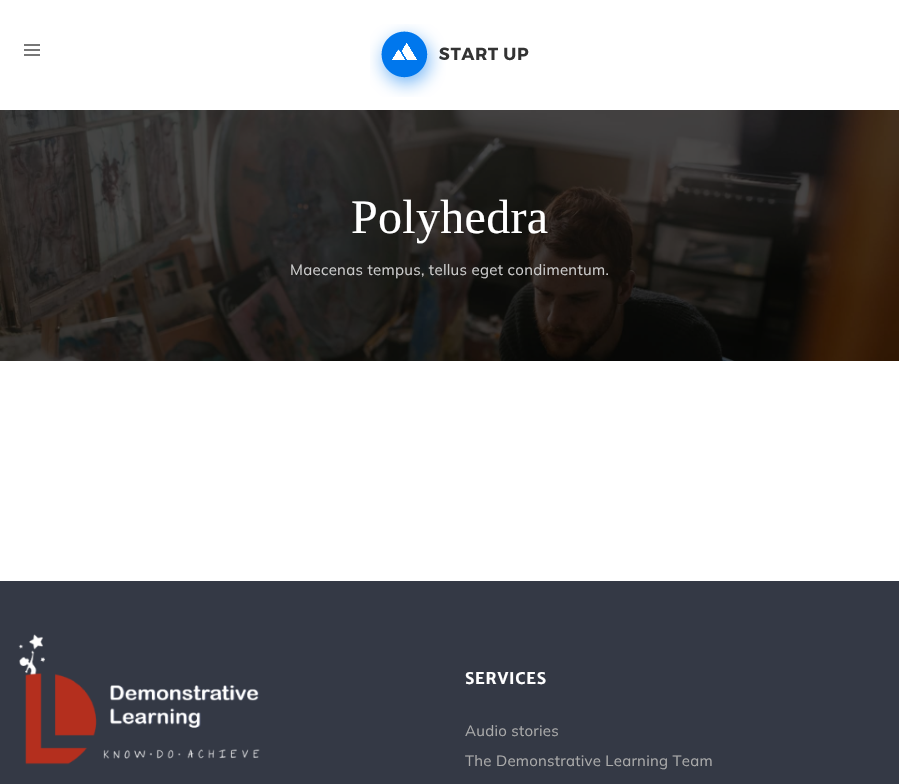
void draw(SkCanvas* canvas) {
	SkPaint paint;
	paint.setAntiAlias(true);
	auto spacedText = [&](const char* s, float x, float y, const SkFont& font, const SkPaint& ink, float letter, float word) {
		std::vector<SkGlyphID> glyphs(font.countText(s, strlen(s), SkTextEncoding::kUTF8));
		std::vector<float> xs(glyphs.size());
		font.textToGlyphs(s, strlen(s), SkTextEncoding::kUTF8, glyphs);
		font.getXPos(glyphs, xs, x);
		float extra = 0;
		for (size_t i = 0; i < glyphs.size(); i++) {
			xs[i] += extra;
			extra += letter + word * (glyphs[i] == font.unicharToGlyph(' '));
		}
		canvas->drawTextBlob(SkTextBlob::MakeFromPosHGlyphs(glyphs, xs, y, font), 0, 0, ink);
	};
	canvas->clear(0xffffffff);
	paint.setColor(0xff777777);
	canvas->drawRect(SkRect::MakeXYWH(24, 49, 16, 2), paint);
	canvas->drawRect(SkRect::MakeXYWH(24, 44, 16, 2), paint);
	canvas->drawRect(SkRect::MakeXYWH(24, 54, 16, 2), paint);
	canvas->drawImageRect(SkImages::DeferredFromEncodedData(SkData::MakeFromFileName("img1.png")), SkRect::MakeXYWH(370, 24, 159, 73), SkSamplingOptions());
	canvas->drawImageRect(SkImages::DeferredFromEncodedData(SkData::MakeFromFileName("img2.png")), SkRect::MakeXYWH(0, 110, 899, 251), SkSamplingOptions());
	SkFont f1(fontMgr->matchFamilyStyle("Liberation Serif", SkFontStyle::Normal()), 48);
	f1.setSubpixel(true);
	paint.setColor(0xffffffff);
	spacedText("Polyhedra", 351, 233, f1, paint, 0.3, 0);
	SkFont f2(fontMgr->matchFamilyStyle("Mulish", SkFontStyle::Normal()), 15);
	f2.setSubpixel(true);
	paint.setColor(0xffcccccc);
	spacedText("Maecenas tempus, tellus eget condimentum.", 290, 275, f2, paint, 0.3, 0);
	paint.setColor(0xff343945);
	canvas->drawRect(SkRect::MakeXYWH(0, 581, 899, 203), paint);
	canvas->drawImageRect(SkImages::DeferredFromEncodedData(SkData::MakeFromFileName("img3.png")), SkRect::MakeXYWH(18, 634, 242, 131), SkSamplingOptions());
	SkFont f3(fontMgr->matchFamilyStyle("Merriweather Sans", SkFontStyle::Bold()), 16);
	f3.setSubpixel(true);
	paint.setColor(0xffffffff);
	spacedText("SERVICES", 465, 684, f3, paint, 0.75, 0);
	paint.setColor(0xffaaaaaa);
	spacedText("Audio stories", 465, 736, f2, paint, 0.25, 0);
	spacedText("The Demonstrative Learning Team", 465, 766, f2, paint, 0.25, 0);
}
